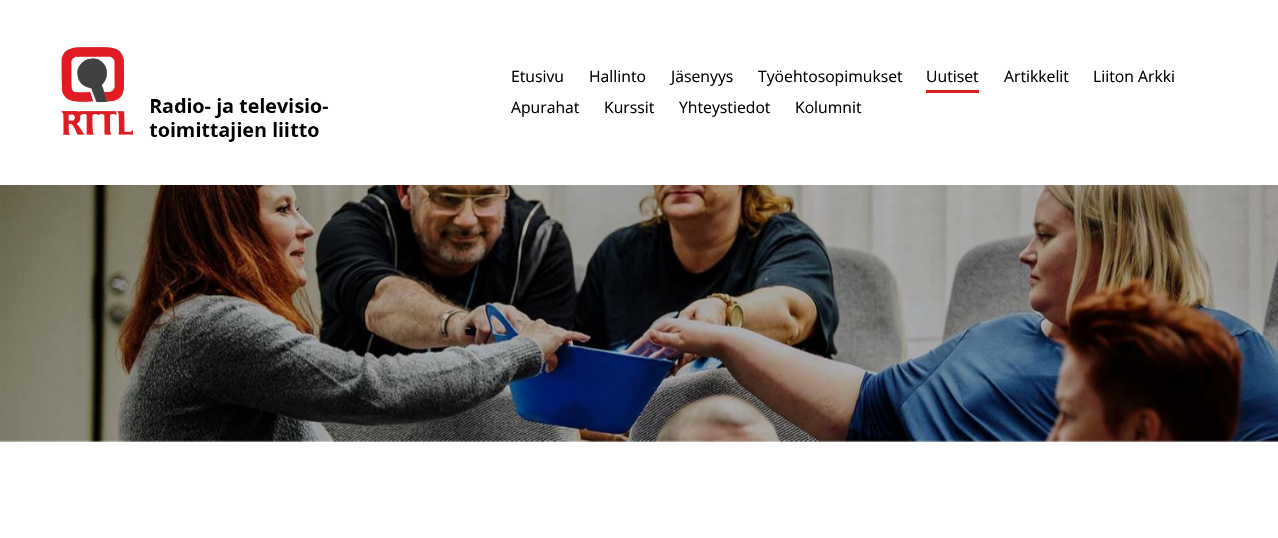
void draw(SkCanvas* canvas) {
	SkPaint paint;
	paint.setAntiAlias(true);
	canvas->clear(0xffffffff);
	canvas->drawImageRect(SkImages::DeferredFromEncodedData(SkData::MakeFromFileName("img1.png")), SkRect::MakeXYWH(0, 185, 1278, 257), SkSamplingOptions());
	canvas->drawImageRect(SkImages::DeferredFromEncodedData(SkData::MakeFromFileName("img2.png")), SkRect::MakeXYWH(61, 47, 268, 95), SkSamplingOptions());
	SkFont f1(fontMgr->matchFamilyStyle("Open Sans", SkFontStyle::Normal()), 15.75);
	f1.setSubpixel(true);
	paint.setColor(0xff000000);
	canvas->drawString("Etusivu", 511, 82, f1, paint);
	canvas->drawString("Hallinto", 589, 82, f1, paint);
	canvas->drawString("Jäsenyys", 671, 82, f1, paint);
	canvas->drawString("Työehtosopimukset", 758, 82, f1, paint);
	canvas->drawString("Uutiset", 926, 82, f1, paint);
	paint.setColor(0xffd5221e);
	canvas->drawRect(SkRect::MakeXYWH(926, 90, 53, 3), paint);
	paint.setColor(0xff000000);
	canvas->drawString("Artikkelit", 1004, 82, f1, paint);
	canvas->drawString("Liiton Arkki", 1093, 82, f1, paint);
	canvas->drawString("Apurahat", 511, 113, f1, paint);
	canvas->drawString("Kurssit", 604, 113, f1, paint);
	canvas->drawString("Yhteystiedot", 679, 113, f1, paint);
	canvas->drawString("Kolumnit", 795, 113, f1, paint);
}
